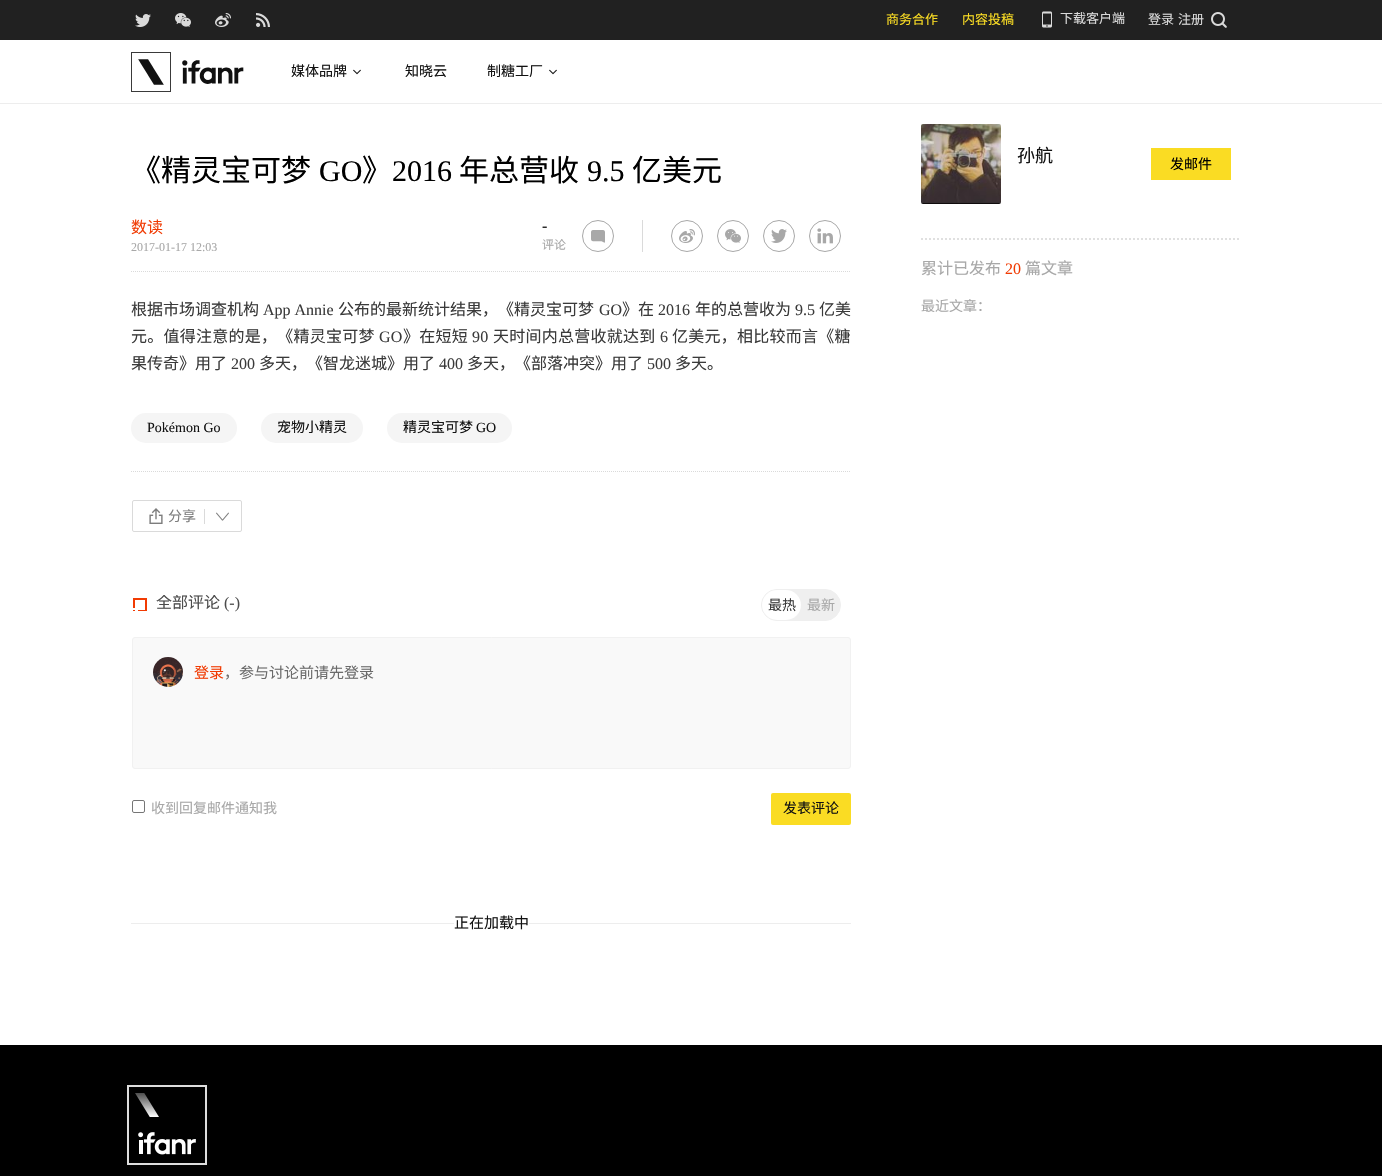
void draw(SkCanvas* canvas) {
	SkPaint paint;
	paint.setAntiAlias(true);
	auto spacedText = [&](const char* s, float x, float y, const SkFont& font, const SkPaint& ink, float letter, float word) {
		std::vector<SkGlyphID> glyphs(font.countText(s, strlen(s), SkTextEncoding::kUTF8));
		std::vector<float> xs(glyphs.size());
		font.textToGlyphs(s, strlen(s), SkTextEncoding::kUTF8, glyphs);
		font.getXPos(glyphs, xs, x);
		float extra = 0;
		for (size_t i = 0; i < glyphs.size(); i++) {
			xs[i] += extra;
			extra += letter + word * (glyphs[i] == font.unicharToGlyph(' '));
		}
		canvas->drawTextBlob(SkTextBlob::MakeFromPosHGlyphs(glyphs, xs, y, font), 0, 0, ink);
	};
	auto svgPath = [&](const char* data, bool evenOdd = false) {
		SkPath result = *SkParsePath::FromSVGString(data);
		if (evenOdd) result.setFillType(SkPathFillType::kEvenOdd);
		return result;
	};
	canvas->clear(0xffffffff);
	paint.setColor(0xff212121);
	canvas->drawRect(SkRect::MakeXYWH(0, 0, 1382, 40), paint);
	canvas->drawImageRect(SkImages::DeferredFromEncodedData(SkData::MakeFromFileName("img1.png")), SkRect::MakeXYWH(135, 14, 16, 13), SkSamplingOptions());
	canvas->drawImageRect(SkImages::DeferredFromEncodedData(SkData::MakeFromFileName("img2.png")), SkRect::MakeXYWH(175, 13, 16, 14), SkSamplingOptions());
	canvas->drawImageRect(SkImages::DeferredFromEncodedData(SkData::MakeFromFileName("img3.png")), SkRect::MakeXYWH(215, 13, 16, 14), SkSamplingOptions());
	canvas->drawImageRect(SkImages::DeferredFromEncodedData(SkData::MakeFromFileName("img4.png")), SkRect::MakeXYWH(256, 13, 14, 14), SkSamplingOptions());
	SkFont f1(fontMgr->matchFamilyStyle("Noto Sans CJK SC", SkFontStyle::Normal()), 13);
	f1.setSubpixel(true);
	paint.setColor(0xfffadc23);
	canvas->drawString("商务合作", 886, 24, f1, paint);
	canvas->drawString("内容投稿", 962, 24, f1, paint);
	canvas->drawImageRect(SkImages::DeferredFromEncodedData(SkData::MakeFromFileName("img5.png")), SkRect::MakeXYWH(1042, 11, 10, 17), SkSamplingOptions());
	paint.setColor(0xffdadada);
	canvas->drawString("下载客户端", 1060, 23, f1, paint);
	canvas->drawString("登录", 1148, 24, f1, paint);
	canvas->drawString("注册", 1178, 24, f1, paint);
	canvas->drawImageRect(SkImages::DeferredFromEncodedData(SkData::MakeFromFileName("img6.png")), SkRect::MakeXYWH(1211, 12, 16, 16), SkSamplingOptions());
	paint.setColor(0xffededed);
	canvas->drawRect(SkRect::MakeXYWH(0, 103, 1382, 1), paint);
	canvas->drawImageRect(SkImages::DeferredFromEncodedData(SkData::MakeFromFileName("img7.png")), SkRect::MakeXYWH(131, 52, 113, 40), SkSamplingOptions());
	SkFont f2(fontMgr->matchFamilyStyle("Noto Sans CJK SC", SkFontStyle::Normal()), 14);
	f2.setSubpixel(true);
	paint.setColor(0xff121212);
	canvas->drawString("媒体品牌", 291, 76, f2, paint);
	canvas->drawImageRect(SkImages::DeferredFromEncodedData(SkData::MakeFromFileName("img8.png")), SkRect::MakeXYWH(353, 69, 8, 6), SkSamplingOptions());
	canvas->drawString("知晓云", 405, 76, f2, paint);
	canvas->drawString("制糖工厂", 487, 76, f2, paint);
	canvas->drawImageRect(SkImages::DeferredFromEncodedData(SkData::MakeFromFileName("img8.png")), SkRect::MakeXYWH(549, 69, 8, 6), SkSamplingOptions());
	SkFont f3(fontMgr->matchFamilyStyle("Noto Sans CJK SC", SkFontStyle::Normal()), 30);
	f3.setSubpixel(true);
	paint.setColor(0xff000000);
	canvas->drawString("《精灵宝可梦", 131, 181, f3, paint);
	SkFont f4(fontMgr->matchFamilyStyle("Liberation Serif", SkFontStyle::Normal()), 30);
	f4.setSubpixel(true);
	canvas->drawString("GO", 319, 181, f4, paint);
	canvas->drawString("》", 362, 181, f3, paint);
	canvas->drawString("2016", 392, 181, f4, paint);
	canvas->drawString("年总营收", 459, 181, f3, paint);
	canvas->drawString("9.5", 587, 181, f4, paint);
	canvas->drawString("亿美元", 632, 181, f3, paint);
	paint.setStroke(true);
	paint.setStrokeWidth(1);
	paint.setColor(0xffdadada);
	paint.setPathEffect(SkDashPathEffect::Make({{1, 1}}, 0));
	canvas->drawPath(svgPath("M131 271.5H851"), paint);
	paint.setPathEffect(nullptr);
	SkFont f5(fontMgr->matchFamilyStyle("Noto Sans CJK SC", SkFontStyle::Normal()), 16);
	f5.setSubpixel(true);
	paint.setStroke(false);
	paint.setColor(0xfff13b03);
	canvas->drawString("数读", 131, 233, f5, paint);
	SkFont f6(fontMgr->matchFamilyStyle("Liberation Serif", SkFontStyle::Normal()), 12);
	f6.setSubpixel(true);
	paint.setColor(0xffa8a8a8);
	canvas->drawString("2017-01-17 12:03", 131, 251, f6, paint);
	SkFont f7(fontMgr->matchFamilyStyle("Liberation Serif", SkFontStyle::Normal()), 16);
	f7.setSubpixel(true);
	paint.setColor(0xff121212);
	canvas->drawString("-", 542, 231, f7, paint);
	SkFont f8(fontMgr->matchFamilyStyle("Noto Sans CJK SC", SkFontStyle::Normal()), 12);
	f8.setSubpixel(true);
	paint.setColor(0xffa8a8a8);
	canvas->drawString("评论", 542, 249, f8, paint);
	paint.setStroke(true);
	canvas->drawCircle(598, 236, 15.5, paint);
	canvas->drawImageRect(SkImages::DeferredFromEncodedData(SkData::MakeFromFileName("img9.png")), SkRect::MakeXYWH(591, 230, 14, 13), SkSamplingOptions());
	paint.setStroke(false);
	paint.setColor(0xffdadada);
	canvas->drawRect(SkRect::MakeXYWH(642, 220, 1, 32), paint);
	paint.setStroke(true);
	paint.setColor(0xffa8a8a8);
	canvas->drawCircle(687, 236, 15.5, paint);
	canvas->drawImageRect(SkImages::DeferredFromEncodedData(SkData::MakeFromFileName("img10.png")), SkRect::MakeXYWH(679, 229, 16, 14), SkSamplingOptions());
	canvas->drawCircle(733, 236, 15.5, paint);
	canvas->drawImageRect(SkImages::DeferredFromEncodedData(SkData::MakeFromFileName("img11.png")), SkRect::MakeXYWH(725, 229, 16, 14), SkSamplingOptions());
	canvas->drawCircle(779, 236, 15.5, paint);
	canvas->drawImageRect(SkImages::DeferredFromEncodedData(SkData::MakeFromFileName("img12.png")), SkRect::MakeXYWH(771, 229, 16, 14), SkSamplingOptions());
	canvas->drawCircle(825, 236, 15.5, paint);
	canvas->drawImageRect(SkImages::DeferredFromEncodedData(SkData::MakeFromFileName("img13.png")), SkRect::MakeXYWH(817, 228, 16, 16), SkSamplingOptions());
	paint.setStroke(false);
	paint.setColor(0xff3a3a3a);
	canvas->drawString("根据市场调查机构", 131, 315, f5, paint);
	canvas->drawString("App Annie", 263, 315, f7, paint);
	canvas->drawString("公布的最新统计结果，《精灵宝可梦", 338, 315, f5, paint);
	canvas->drawString("GO", 599, 315, f7, paint);
	canvas->drawString("》在", 622, 315, f5, paint);
	canvas->drawString("2016", 658, 315, f7, paint);
	canvas->drawString("年的总营收为", 695, 315, f5, paint);
	canvas->drawString("9.5", 795, 315, f7, paint);
	canvas->drawString("亿美", 819, 315, f5, paint);
	spacedText("元。值得注意的是，《精灵宝可梦", 131, 342, f5, paint, 0.25, 0);
	spacedText("GO", 379, 342, f7, paint, 0.25, 0);
	spacedText("》在短短", 403, 342, f5, paint, 0.25, 0);
	spacedText("90", 472, 342, f7, paint, 0.25, 0);
	spacedText("天时间内总营收就达到", 493, 342, f5, paint, 0.25, 0);
	spacedText("6", 660, 342, f7, paint, 0.25, 0);
	spacedText("亿美元，相比较而言《糖", 672, 342, f5, paint, 0.25, 0);
	canvas->drawString("果传奇》用了", 131, 369, f5, paint);
	canvas->drawString("200", 231, 369, f7, paint);
	canvas->drawString("多天，《智龙迷城》用了", 259, 369, f5, paint);
	canvas->drawString("400", 439, 369, f7, paint);
	canvas->drawString("多天，《部落冲突》用了", 467, 369, f5, paint);
	canvas->drawString("500", 647, 369, f7, paint);
	canvas->drawString("多天。", 675, 369, f5, paint);
	paint.setStroke(true);
	paint.setColor(0xffdadada);
	paint.setPathEffect(SkDashPathEffect::Make({{1, 1}}, 0));
	canvas->drawPath(svgPath("M131 471.5H851"), paint);
	paint.setPathEffect(nullptr);
	paint.setStroke(false);
	paint.setColor(0xfff5f5f5);
	canvas->drawRoundRect(SkRect::MakeXYWH(131, 413, 106, 30), 15, 15, paint);
	SkFont f9(fontMgr->matchFamilyStyle("Liberation Serif", SkFontStyle::Normal()), 14);
	f9.setSubpixel(true);
	paint.setColor(0xff121212);
	canvas->drawString("Pokémon Go", 147, 432, f9, paint);
	paint.setColor(0xfff5f5f5);
	canvas->drawRoundRect(SkRect::MakeXYWH(261, 413, 102, 30), 15, 15, paint);
	paint.setColor(0xff121212);
	canvas->drawString("宠物小精灵", 277, 432, f2, paint);
	paint.setColor(0xfff5f5f5);
	canvas->drawRoundRect(SkRect::MakeXYWH(387, 413, 125, 30), 15, 15, paint);
	paint.setColor(0xff121212);
	canvas->drawString("精灵宝可梦", 403, 432, f2, paint);
	canvas->drawString("GO", 476, 432, f9, paint);
	paint.setStroke(true);
	paint.setColor(0xffdadada);
	canvas->drawRoundRect(SkRect::MakeXYWH(132.5, 500.5, 109, 31), 1.5, 1.5, paint);
	canvas->drawImageRect(SkImages::DeferredFromEncodedData(SkData::MakeFromFileName("img14.png")), SkRect::MakeXYWH(149, 508, 14, 16), SkSamplingOptions());
	paint.setStroke(false);
	paint.setColor(0xff7d7d7d);
	canvas->drawString("分享", 168, 521, f2, paint);
	paint.setColor(0xffdadada);
	canvas->drawRect(SkRect::MakeXYWH(204, 509, 1, 15), paint);
	canvas->drawImageRect(SkImages::DeferredFromEncodedData(SkData::MakeFromFileName("img15.png")), SkRect::MakeXYWH(216, 512, 13, 9), SkSamplingOptions());
	canvas->drawImageRect(SkImages::DeferredFromEncodedData(SkData::MakeFromFileName("img16.png")), SkRect::MakeXYWH(133, 598, 14, 13), SkSamplingOptions());
	canvas->save();
	canvas->clipRect(SkRect::MakeXYWH(132, 595, 108, 16));
	paint.setColor(0xff4c4c4c);
	canvas->drawString("全部评论", 156, 608, f5, paint);
	canvas->restore();
	canvas->drawString("(-)", 224, 608, f7, paint);
	paint.setColor(0xffefefef);
	canvas->drawRoundRect(SkRect::MakeXYWH(761.5, 589.5, 79, 31), 15.5, 15.5, paint);
	paint.setStroke(true);
	canvas->drawRoundRect(SkRect::MakeXYWH(761.5, 589.5, 79, 31), 15.5, 15.5, paint);
	paint.setStroke(false);
	paint.setColor(0xffffffff);
	canvas->drawRoundRect(SkRect::MakeXYWH(762, 590, 39, 30), 15, 15, paint);
	paint.setColor(0xff3a3a3a);
	canvas->drawString("最热", 768, 610, f2, paint);
	paint.setColor(0xffa8a8a8);
	canvas->drawString("最新", 807, 610, f2, paint);
	paint.setColor(0xfff9f9f9);
	canvas->drawRoundRect(SkRect::MakeXYWH(132.5, 637.5, 718, 131), 2.5, 2.5, paint);
	paint.setStroke(true);
	paint.setColor(0xfff1f1f1);
	canvas->drawRoundRect(SkRect::MakeXYWH(132.5, 637.5, 718, 131), 2.5, 2.5, paint);
	canvas->drawImageRect(SkImages::DeferredFromEncodedData(SkData::MakeFromFileName("img17.png")), SkRect::MakeXYWH(153, 657, 30, 30), SkSamplingOptions());
	SkFont f10(fontMgr->matchFamilyStyle("Noto Sans CJK SC", SkFontStyle::Normal()), 15);
	f10.setSubpixel(true);
	paint.setStroke(false);
	paint.setColor(0xfff13b03);
	canvas->drawString("登录", 194, 678, f10, paint);
	paint.setColor(0xff6b6b6b);
	canvas->drawString("，参与讨论前请先登录", 224, 678, f10, paint);
	paint.setStroke(true);
	paint.setColor(0xff767676);
	canvas->drawRoundRect(SkRect::MakeXYWH(132.5, 800.5, 12, 12), 1.5, 1.5, paint);
	paint.setStroke(false);
	paint.setColor(0xffa8a8a8);
	canvas->drawString("收到回复邮件通知我", 151, 813, f2, paint);
	paint.setColor(0xfffadc23);
	canvas->drawRoundRect(SkRect::MakeXYWH(771, 793, 80, 32), 2, 2, paint);
	paint.setColor(0xff121212);
	canvas->drawString("发表评论", 783, 813, f2, paint);
	paint.setColor(0xffededed);
	canvas->drawRect(SkRect::MakeXYWH(131, 923, 323, 1), paint);
	paint.setColor(0xff121212);
	canvas->drawString("正在加载中", 454, 928, f10, paint);
	paint.setColor(0xffededed);
	canvas->drawRect(SkRect::MakeXYWH(529, 923, 322, 1), paint);
	canvas->drawImageRect(SkImages::DeferredFromEncodedData(SkData::MakeFromFileName("img18.png")), SkRect::MakeXYWH(921, 124, 80, 80), SkSamplingOptions());
	SkFont f11(fontMgr->matchFamilyStyle("Noto Sans CJK SC", SkFontStyle::Normal()), 18);
	f11.setSubpixel(true);
	paint.setColor(0xff121212);
	canvas->drawString("孙航", 1017, 162, f11, paint);
	paint.setColor(0xfffadc23);
	canvas->drawRect(SkRect::MakeXYWH(1151, 148, 80, 32), paint);
	paint.setColor(0xff000000);
	canvas->drawString("发邮件", 1170, 169, f2, paint);
	paint.setStroke(true);
	paint.setStrokeWidth(2);
	paint.setColor(0xffe0e0e0);
	paint.setPathEffect(SkDashPathEffect::Make({{2, 2}}, 0));
	canvas->drawPath(svgPath("M921 239H1241"), paint);
	paint.setPathEffect(nullptr);
	paint.setStroke(false);
	paint.setColor(0xffa8a8a8);
	canvas->drawString("累计已发布", 921, 274, f5, paint);
	paint.setColor(0xfff13b03);
	canvas->drawString("20", 1005, 274, f7, paint);
	paint.setColor(0xffa8a8a8);
	canvas->drawString("篇文章", 1025, 274, f5, paint);
	canvas->drawString("最近文章：", 921, 311, f2, paint);
	paint.setColor(0xff000000);
	canvas->drawRect(SkRect::MakeXYWH(0, 1045, 1382, 131), paint);
	canvas->drawImageRect(SkImages::DeferredFromEncodedData(SkData::MakeFromFileName("img19.png")), SkRect::MakeXYWH(127, 1085, 80, 80), SkSamplingOptions());
}
